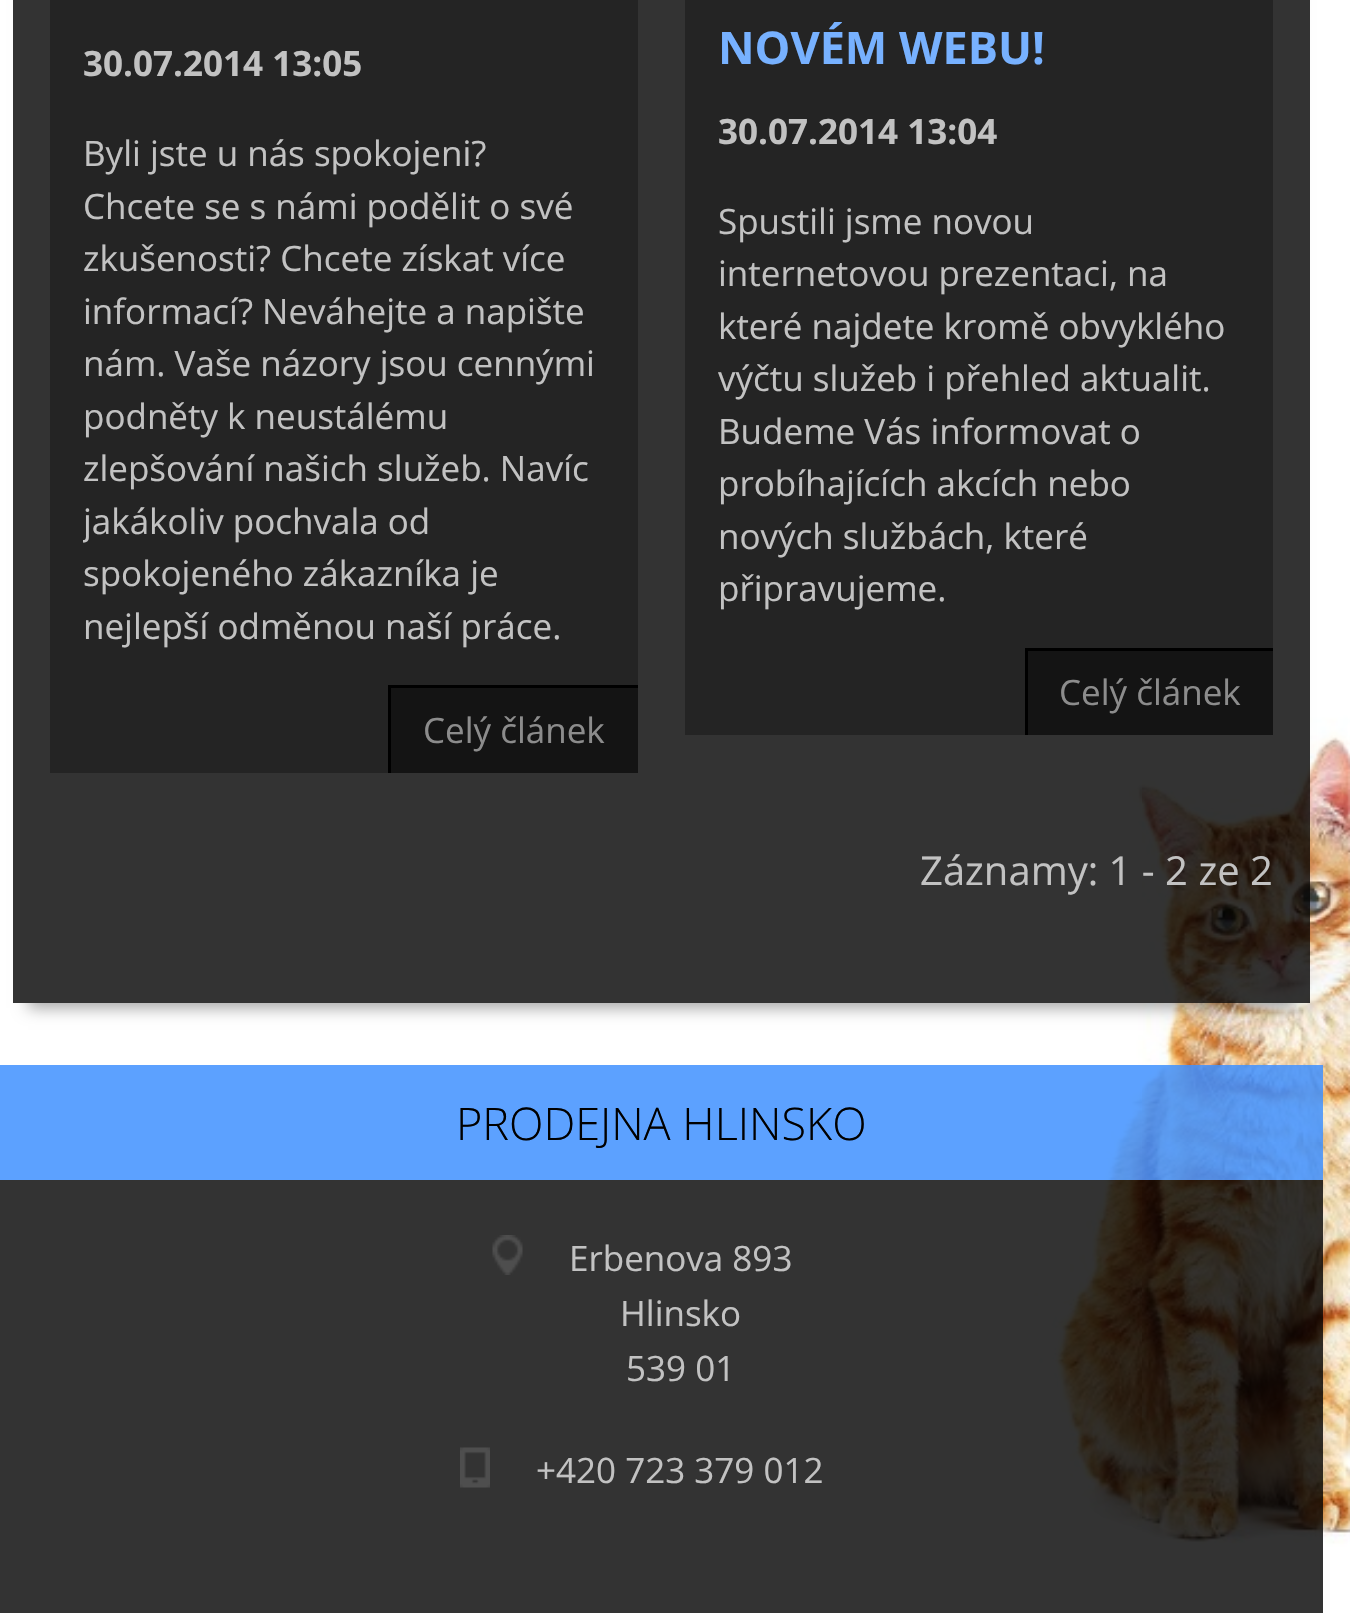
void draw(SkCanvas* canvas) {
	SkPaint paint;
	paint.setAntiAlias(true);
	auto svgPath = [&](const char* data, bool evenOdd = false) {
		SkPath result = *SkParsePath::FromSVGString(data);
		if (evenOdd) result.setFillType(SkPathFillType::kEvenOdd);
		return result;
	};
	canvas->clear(0xffffffff);
	canvas->drawImageRect(SkImages::DeferredFromEncodedData(SkData::MakeFromFileName("img1.png")), SkRect::MakeXYWH(0, 0, 1350, 1613), SkSamplingOptions());
	canvas->save();
	canvas->clipPath(svgPath("M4 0H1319V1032H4ZM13-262H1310V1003H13Z", true), true);
	paint.setColor(0x59000000);
	paint.setMaskFilter(SkMaskFilter::MakeBlur(kNormal_SkBlurStyle, 7.5));
	canvas->drawRect(SkRect::MakeXYWH(28, -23, 1267, 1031), paint);
	paint.setMaskFilter(nullptr);
	canvas->restore();
	paint.setColor(0xcc000000);
	canvas->drawRect(SkRect::MakeXYWH(13, 0, 1297, 823), paint);
	paint.setColor(0xff242424);
	canvas->drawRect(SkRect::MakeXYWH(50, 0, 588, 773), paint);
	SkFont f1(fontMgr->matchFamilyStyle("Open Sans", SkFontStyle::Bold()), 35);
	f1.setSubpixel(true);
	paint.setColor(0xffc2c2c2);
	canvas->drawString("30.07.2014 13:05", 83, 76, f1, paint);
	SkFont f2(fontMgr->matchFamilyStyle("Open Sans", SkFontStyle::Normal()), 35);
	f2.setSubpixel(true);
	canvas->drawString("Byli jste u nás spokojeni?", 83, 166, f2, paint);
	canvas->drawString("Chcete se s námi podělit o své", 83, 219, f2, paint);
	canvas->drawString("zkušenosti? Chcete získat více", 83, 271, f2, paint);
	canvas->drawString("informací? Neváhejte a napište", 83, 324, f2, paint);
	canvas->drawString("nám. Vaše názory jsou cennými", 83, 376, f2, paint);
	canvas->drawString("podněty k neustálému", 83, 429, f2, paint);
	canvas->drawString("zlepšování našich služeb. Navíc", 83, 481, f2, paint);
	canvas->save();
	canvas->clipRect(SkRect::MakeXYWH(83, 128, 522, 525));
	canvas->drawString("jakákoliv pochvala od", 83, 534, f2, paint);
	canvas->restore();
	canvas->drawString("spokojeného zákazníka je", 83, 586, f2, paint);
	canvas->drawString("nejlepší odměnou naší práce.", 83, 639, f2, paint);
	paint.setColor(0xff141414);
	canvas->drawRect(SkRect::MakeXYWH(391, 688, 247, 85), paint);
	paint.setColor(0xff000000);
	canvas->drawRect(SkRect::MakeXYWH(388, 685, 250, 3), paint);
	canvas->drawRect(SkRect::MakeXYWH(388, 685, 3, 88), paint);
	paint.setColor(0xff8c8c8c);
	canvas->drawString("Celý článek", 423, 743, f2, paint);
	paint.setColor(0xff242424);
	canvas->drawRect(SkRect::MakeXYWH(685, 0, 588, 735), paint);
	SkFont f3(fontMgr->matchFamilyStyle("Open Sans", SkFontStyle::Bold()), 45);
	f3.setSubpixel(true);
	paint.setColor(0xff77b1ff);
	canvas->drawString("NOVÉM WEBU!", 718, 64, f3, paint);
	paint.setColor(0xffc2c2c2);
	canvas->drawString("30.07.2014 13:04", 718, 144, f1, paint);
	canvas->drawString("Spustili jsme novou", 718, 234, f2, paint);
	canvas->drawString("internetovou prezentaci, na", 718, 286, f2, paint);
	canvas->drawString("které najdete kromě obvyklého", 718, 339, f2, paint);
	canvas->drawString("výčtu služeb i přehled aktualit.", 718, 391, f2, paint);
	canvas->drawString("Budeme Vás informovat o", 718, 444, f2, paint);
	canvas->drawString("probíhajících akcích nebo", 718, 496, f2, paint);
	canvas->drawString("nových službách, které", 718, 549, f2, paint);
	canvas->drawString("připravujeme.", 718, 601, f2, paint);
	paint.setColor(0xff141414);
	canvas->drawRect(SkRect::MakeXYWH(1028, 651, 245, 84), paint);
	paint.setColor(0xff000000);
	canvas->drawRect(SkRect::MakeXYWH(1025, 648, 248, 3), paint);
	canvas->drawRect(SkRect::MakeXYWH(1025, 648, 3, 87), paint);
	paint.setColor(0xff8c8c8c);
	canvas->drawString("Celý článek", 1059, 705, f2, paint);
	paint.setColor(0xcc000000);
	canvas->drawRect(SkRect::MakeXYWH(13, 823, 1297, 180), paint);
	SkFont f4(fontMgr->matchFamilyStyle("Open Sans", SkFontStyle::Normal()), 40);
	f4.setSubpixel(true);
	paint.setColor(0xffc2c2c2);
	canvas->drawString("Záznamy: 1 - 2 ze 2", 920, 885, f4, paint);
	paint.setColor(0xd93f91ff);
	canvas->drawRect(SkRect::MakeXYWH(0, 1065, 1323, 115), paint);
	SkFont f5(fontMgr->matchFamilyStyle("Open Sans", SkFontStyle(300, SkFontStyle::kNormal_Width, SkFontStyle::kUpright_Slant)), 45);
	f5.setSubpixel(true);
	paint.setColor(0xff000000);
	canvas->drawString("PRODEJNA HLINSKO", 456, 1140, f5, paint);
	paint.setColor(0xcc000000);
	canvas->drawRect(SkRect::MakeXYWH(0, 1180, 1323, 333), paint);
	canvas->drawImageRect(SkImages::DeferredFromEncodedData(SkData::MakeFromFileName("img2.png")), SkRect::MakeXYWH(492, 1235, 31, 40), SkSamplingOptions());
	paint.setColor(0xffc2c2c2);
	canvas->drawString("Erbenova 893", 569, 1271, f2, paint);
	canvas->drawString("Hlinsko", 620, 1326, f2, paint);
	canvas->drawString("539 01", 626, 1381, f2, paint);
	canvas->drawImageRect(SkImages::DeferredFromEncodedData(SkData::MakeFromFileName("img3.png")), SkRect::MakeXYWH(460, 1447, 30, 41), SkSamplingOptions());
	canvas->drawString("+420 723 379 012", 536, 1483, f2, paint);
	paint.setColor(0xcc000000);
	canvas->drawRect(SkRect::MakeXYWH(0, 1513, 1323, 50), paint);
	paint.setColor(0xff333333);
	canvas->drawRect(SkRect::MakeXYWH(0, 1563, 1323, 50), paint);
}
